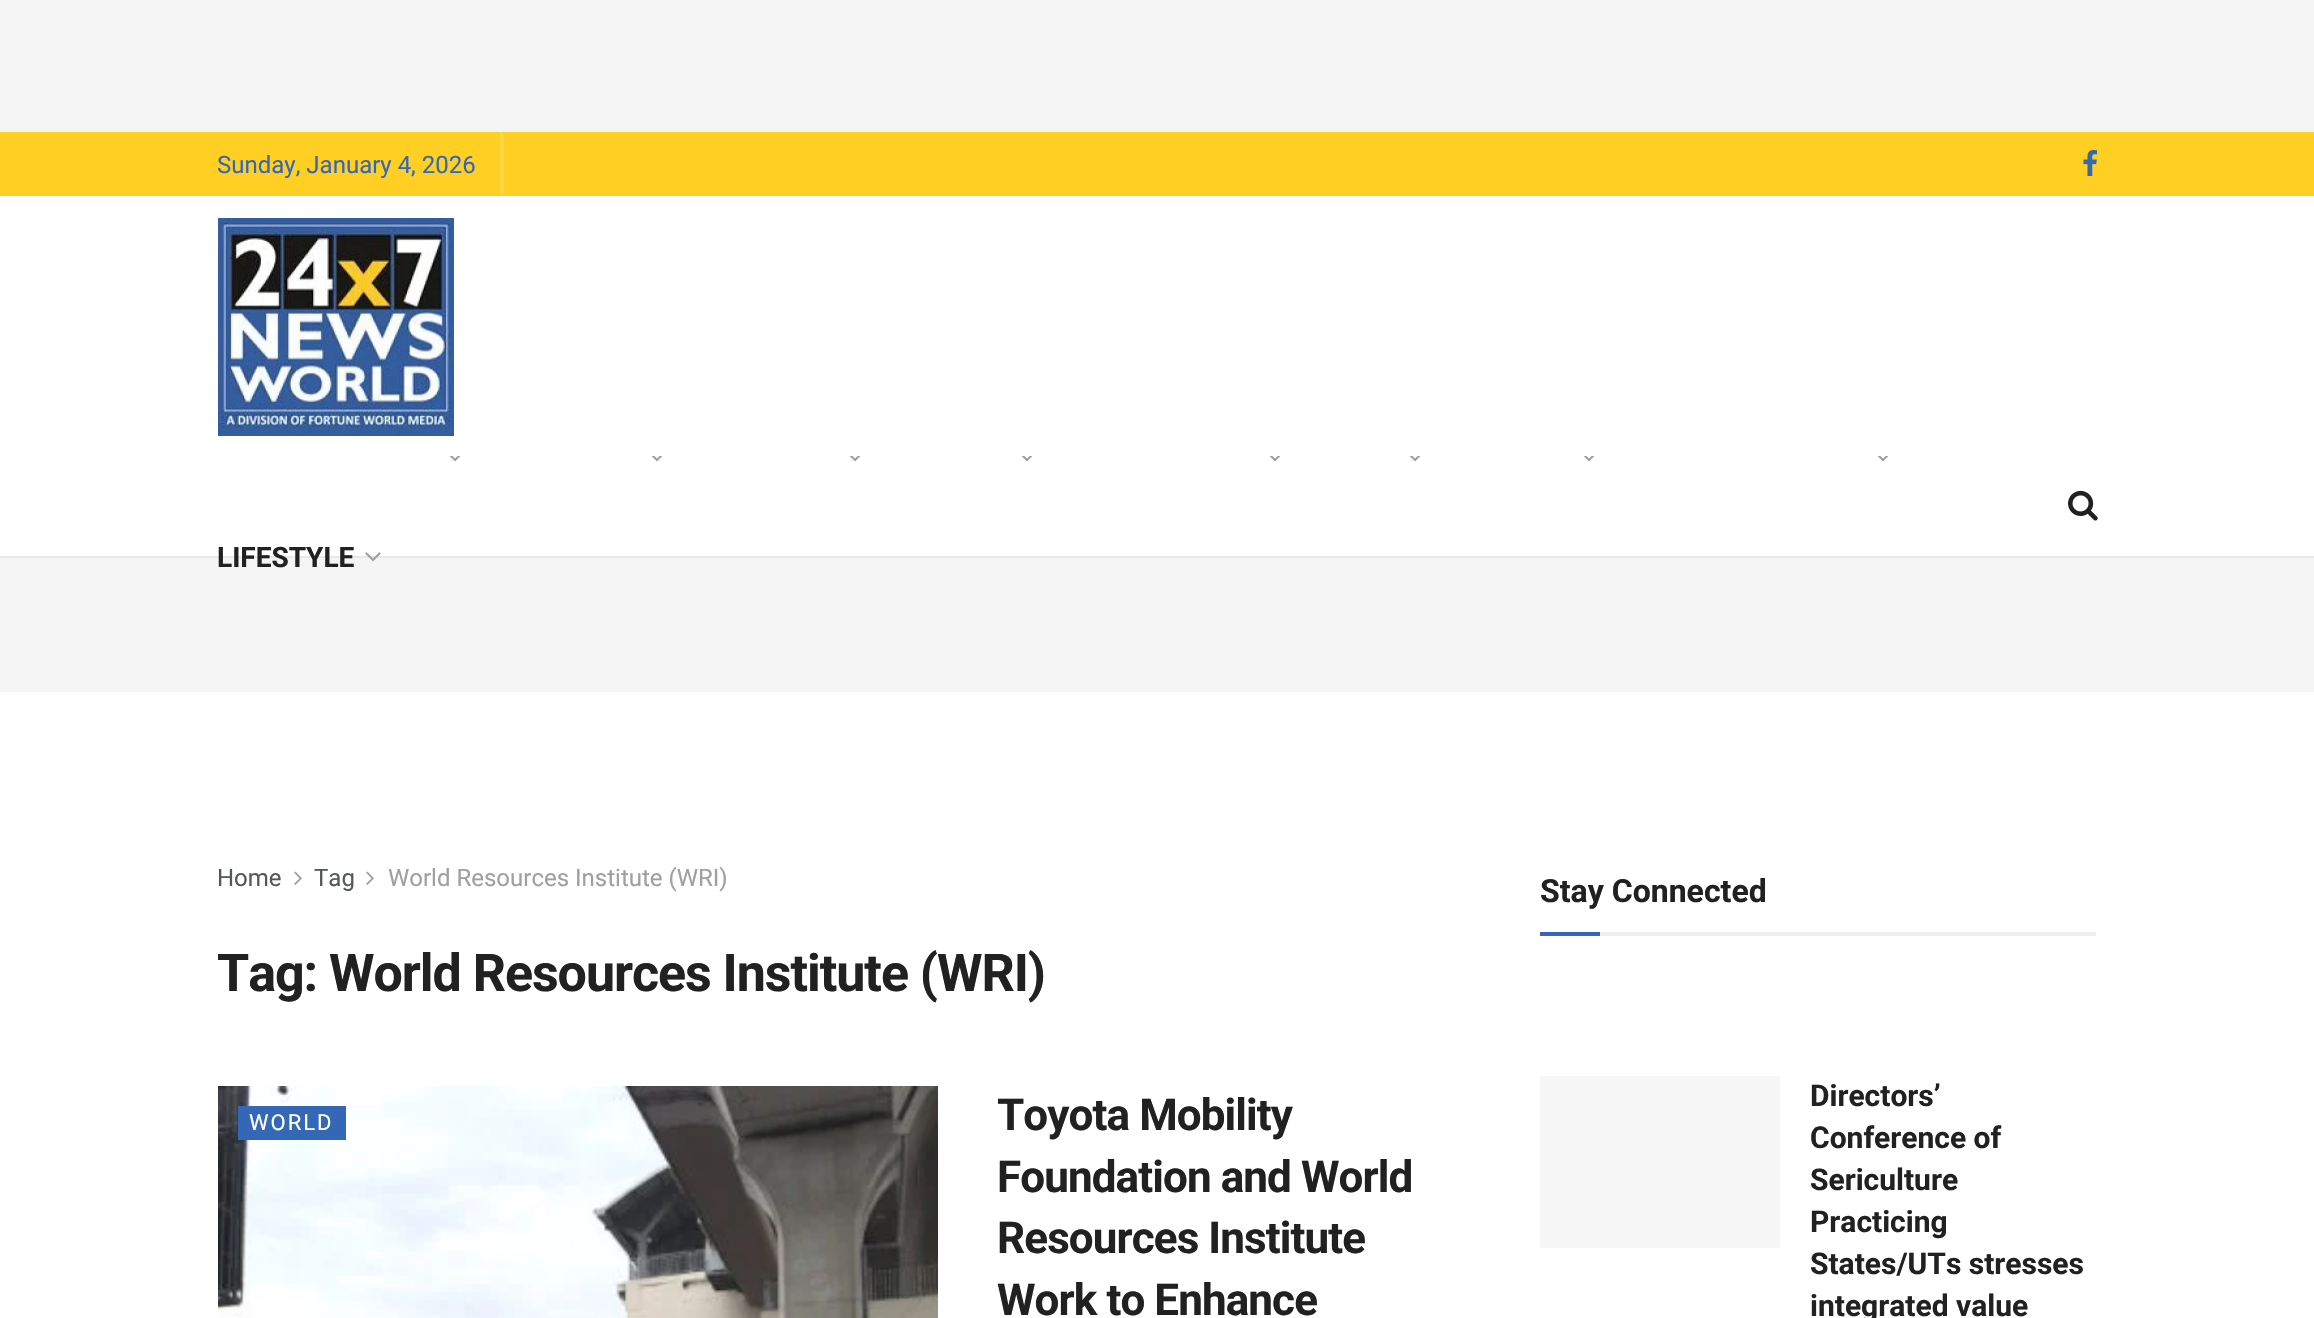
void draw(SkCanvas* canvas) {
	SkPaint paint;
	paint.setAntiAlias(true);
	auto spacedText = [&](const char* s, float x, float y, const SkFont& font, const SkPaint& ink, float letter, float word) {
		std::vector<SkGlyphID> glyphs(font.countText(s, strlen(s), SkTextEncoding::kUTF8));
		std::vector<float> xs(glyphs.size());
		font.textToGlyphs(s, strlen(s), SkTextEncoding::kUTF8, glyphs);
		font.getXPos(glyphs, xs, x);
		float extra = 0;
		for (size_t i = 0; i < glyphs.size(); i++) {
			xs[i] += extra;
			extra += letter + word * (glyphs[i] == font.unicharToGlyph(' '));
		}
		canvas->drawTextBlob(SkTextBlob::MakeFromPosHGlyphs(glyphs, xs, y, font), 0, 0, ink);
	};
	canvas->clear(0xffffffff);
	paint.setColor(0xfff5f5f5);
	canvas->drawRect(SkRect::MakeXYWH(0, 0, 2314, 132), paint);
	paint.setColor(0xffffcf23);
	canvas->drawRect(SkRect::MakeXYWH(0, 132, 2314, 64), paint);
	paint.setColor(0xffffd644);
	canvas->drawRect(SkRect::MakeXYWH(500, 132, 2, 64), paint);
	SkFont f1(fontMgr->matchFamilyStyle("Roboto", SkFontStyle::Normal()), 24);
	f1.setSubpixel(true);
	paint.setColor(0xff3467b6);
	canvas->drawString("Sunday, January 4, 2026", 217, 173, f1, paint);
	paint.setColor(0xffffd644);
	canvas->drawRect(SkRect::MakeXYWH(502, 134, 2, 60), paint);
	canvas->drawImageRect(SkImages::DeferredFromEncodedData(SkData::MakeFromFileName("img1.png")), SkRect::MakeXYWH(2083, 150, 14, 26), SkSamplingOptions());
	canvas->drawImageRect(SkImages::DeferredFromEncodedData(SkData::MakeFromFileName("img2.png")), SkRect::MakeXYWH(218, 218, 236, 218), SkSamplingOptions());
	paint.setColor(0xffe8e8e8);
	canvas->drawRect(SkRect::MakeXYWH(0, 556, 2314, 2), paint);
	canvas->drawImageRect(SkImages::DeferredFromEncodedData(SkData::MakeFromFileName("img3.png")), SkRect::MakeXYWH(2068, 490, 30, 31), SkSamplingOptions());
	canvas->drawImageRect(SkImages::DeferredFromEncodedData(SkData::MakeFromFileName("img4.png")), SkRect::MakeXYWH(449, 456, 12, 6), SkSamplingOptions());
	canvas->drawImageRect(SkImages::DeferredFromEncodedData(SkData::MakeFromFileName("img4.png")), SkRect::MakeXYWH(651, 456, 12, 6), SkSamplingOptions());
	canvas->drawImageRect(SkImages::DeferredFromEncodedData(SkData::MakeFromFileName("img4.png")), SkRect::MakeXYWH(849, 456, 12, 6), SkSamplingOptions());
	canvas->drawImageRect(SkImages::DeferredFromEncodedData(SkData::MakeFromFileName("img4.png")), SkRect::MakeXYWH(1021, 456, 12, 6), SkSamplingOptions());
	canvas->drawImageRect(SkImages::DeferredFromEncodedData(SkData::MakeFromFileName("img4.png")), SkRect::MakeXYWH(1269, 456, 12, 6), SkSamplingOptions());
	canvas->drawImageRect(SkImages::DeferredFromEncodedData(SkData::MakeFromFileName("img4.png")), SkRect::MakeXYWH(1409, 456, 12, 6), SkSamplingOptions());
	canvas->drawImageRect(SkImages::DeferredFromEncodedData(SkData::MakeFromFileName("img4.png")), SkRect::MakeXYWH(1583, 456, 12, 6), SkSamplingOptions());
	canvas->drawImageRect(SkImages::DeferredFromEncodedData(SkData::MakeFromFileName("img4.png")), SkRect::MakeXYWH(1877, 456, 12, 6), SkSamplingOptions());
	paint.setColor(0xfff5f5f5);
	canvas->drawRect(SkRect::MakeXYWH(0, 558, 2314, 134), paint);
	SkFont f2(fontMgr->matchFamilyStyle("Roboto", SkFontStyle::Bold()), 28);
	f2.setSubpixel(true);
	paint.setColor(0xff212121);
	canvas->drawString("LIFESTYLE", 217, 567, f2, paint);
	canvas->drawImageRect(SkImages::DeferredFromEncodedData(SkData::MakeFromFileName("img5.png")), SkRect::MakeXYWH(365, 552, 16, 10), SkSamplingOptions());
	paint.setColor(0xff53585c);
	canvas->drawString("Home", 217, 886, f1, paint);
	canvas->drawImageRect(SkImages::DeferredFromEncodedData(SkData::MakeFromFileName("img6.png")), SkRect::MakeXYWH(294, 871, 8, 14), SkSamplingOptions());
	canvas->drawString("Tag", 314, 886, f1, paint);
	canvas->drawImageRect(SkImages::DeferredFromEncodedData(SkData::MakeFromFileName("img6.png")), SkRect::MakeXYWH(366, 871, 8, 14), SkSamplingOptions());
	paint.setColor(0xffa0a0a0);
	canvas->drawString("World Resources Institute (WRI)", 388, 886, f1, paint);
	SkFont f3(fontMgr->matchFamilyStyle("Roboto", SkFontStyle::Bold()), 52);
	f3.setSubpixel(true);
	paint.setColor(0xff212121);
	spacedText("Tag: World Resources Institute (WRI)", 217, 991, f3, paint, -1.05, 0);
	canvas->drawImageRect(SkImages::DeferredFromEncodedData(SkData::MakeFromFileName("img7.png")), SkRect::MakeXYWH(218, 1086, 720, 232), SkSamplingOptions());
	paint.setColor(0xff3467b6);
	canvas->drawRect(SkRect::MakeXYWH(238, 1106, 108, 34), paint);
	SkFont f4(fontMgr->matchFamilyStyle("Roboto", SkFontStyle::Normal()), 22);
	f4.setSubpixel(true);
	paint.setColor(0xffffffff);
	spacedText("WORLD", 249, 1130, f4, paint, 2, 0);
	canvas->save();
	canvas->clipRect(SkRect::MakeXYWH(998, 1086, 452, 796));
	SkFont f5(fontMgr->matchFamilyStyle("Roboto", SkFontStyle::Bold()), 44);
	f5.setSubpixel(true);
	paint.setColor(0xff212121);
	spacedText("Toyota Mobility", 997, 1130, f5, paint, -0.9, 0);
	canvas->restore();
	spacedText("Foundation and World", 997, 1192, f5, paint, -0.9, 0);
	spacedText("Resources Institute", 997, 1253, f5, paint, -0.9, 0);
	spacedText("Work to Enhance", 997, 1315, f5, paint, -0.9, 0);
	paint.setColor(0xffeeeeee);
	canvas->drawRect(SkRect::MakeXYWH(1600, 932, 496, 4), paint);
	SkFont f6(fontMgr->matchFamilyStyle("Roboto", SkFontStyle::Bold()), 32);
	f6.setSubpixel(true);
	paint.setColor(0xff212121);
	canvas->drawString("Stay Connected", 1540, 902, f6, paint);
	paint.setColor(0xff3467b6);
	canvas->drawRect(SkRect::MakeXYWH(1540, 932, 60, 4), paint);
	paint.setColor(0xfff7f7f7);
	canvas->drawRect(SkRect::MakeXYWH(1540, 1076, 240, 172), paint);
	SkFont f7(fontMgr->matchFamilyStyle("Roboto", SkFontStyle::Bold()), 30);
	f7.setSubpixel(true);
	paint.setColor(0xff212121);
	canvas->drawString("Directors’", 1810, 1106, f7, paint);
	canvas->drawString("Conference of", 1810, 1148, f7, paint);
	canvas->drawString("Sericulture", 1810, 1190, f7, paint);
	canvas->drawString("Practicing", 1810, 1232, f7, paint);
	canvas->drawString("States/UTs stresses", 1810, 1274, f7, paint);
	canvas->drawString("integrated value", 1810, 1316, f7, paint);
}
